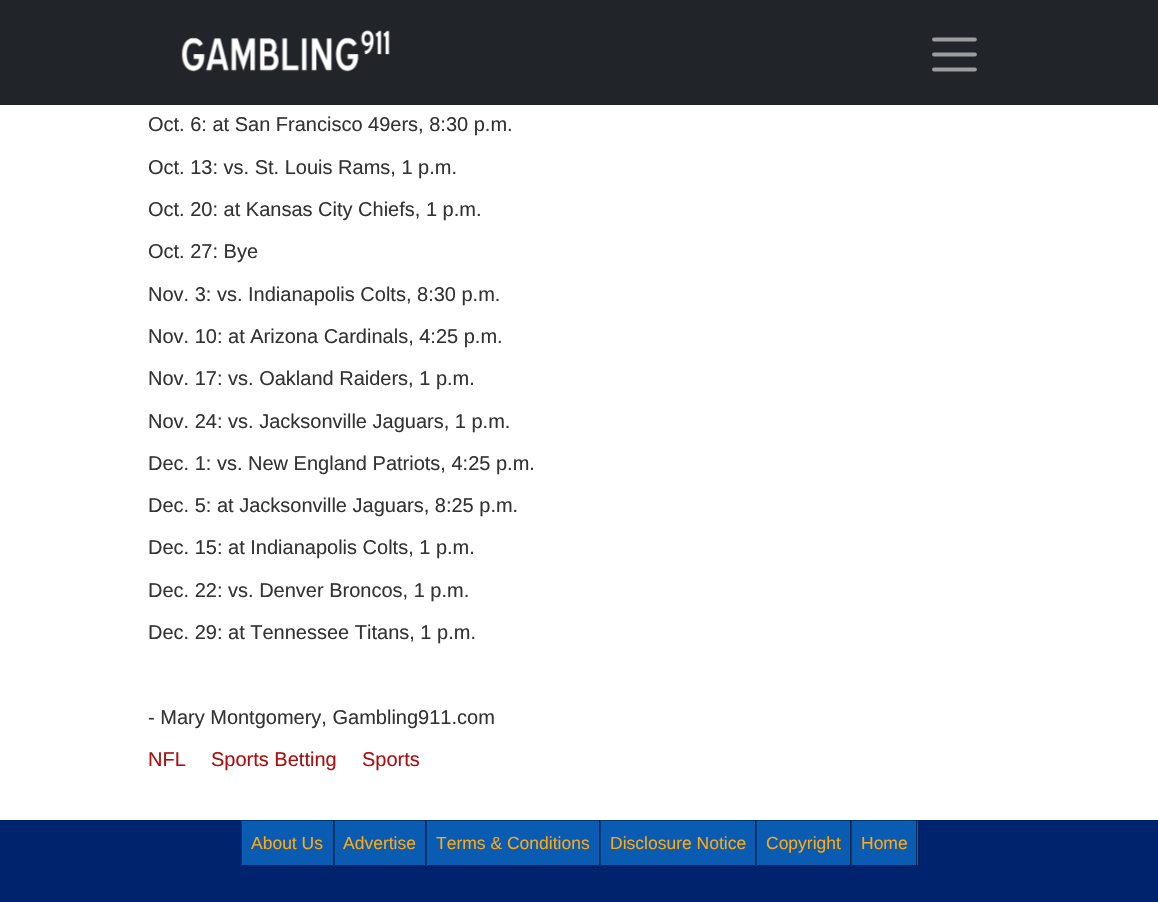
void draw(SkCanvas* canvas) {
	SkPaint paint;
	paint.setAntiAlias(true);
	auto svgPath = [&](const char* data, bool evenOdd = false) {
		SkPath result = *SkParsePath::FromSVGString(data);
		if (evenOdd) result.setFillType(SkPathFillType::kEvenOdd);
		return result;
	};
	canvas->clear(0xffffffff);
	paint.setColor(0xff212529);
	canvas->drawRect(SkRect::MakeXYWH(0, 0, 1158, 105), paint);
	canvas->drawImageRect(SkImages::DeferredFromEncodedData(SkData::MakeFromFileName("img1.png")), SkRect::MakeXYWH(181, 30, 209, 42), SkSamplingOptions());
	paint.setStroke(true);
	paint.setStrokeWidth(3.8);
	paint.setStrokeCap(SkPaint::kRound_Cap);
	paint.setColor(0xff9b9d9f);
	canvas->drawPath(svgPath("M934 39.5H975M934 54.5H975M934 69.5H975"), paint);
	SkFont f1(fontMgr->matchFamilyStyle("Liberation Sans", SkFontStyle::Normal()), 20);
	f1.setSubpixel(true);
	paint.setStroke(false);
	paint.setColor(0xff333333);
	canvas->drawString("Oct. 6: at San Francisco 49ers, 8:30 p.m.", 148, 131, f1, paint);
	canvas->drawString("Oct. 13: vs. St. Louis Rams, 1 p.m.", 148, 174, f1, paint);
	canvas->drawString("Oct. 20: at Kansas City Chiefs, 1 p.m.", 148, 216, f1, paint);
	canvas->drawString("Oct. 27: Bye", 148, 258, f1, paint);
	canvas->drawString("Nov. 3: vs. Indianapolis Colts, 8:30 p.m.", 148, 301, f1, paint);
	canvas->drawString("Nov. 10: at Arizona Cardinals, 4:25 p.m.", 148, 343, f1, paint);
	canvas->drawString("Nov. 17: vs. Oakland Raiders, 1 p.m.", 148, 385, f1, paint);
	canvas->drawString("Nov. 24: vs. Jacksonville Jaguars, 1 p.m.", 148, 428, f1, paint);
	canvas->drawString("Dec. 1: vs. New England Patriots, 4:25 p.m.", 148, 470, f1, paint);
	canvas->drawString("Dec. 5: at Jacksonville Jaguars, 8:25 p.m.", 148, 512, f1, paint);
	canvas->drawString("Dec. 15: at Indianapolis Colts, 1 p.m.", 148, 554, f1, paint);
	canvas->drawString("Dec. 22: vs. Denver Broncos, 1 p.m.", 148, 597, f1, paint);
	canvas->drawString("Dec. 29: at Tennessee Titans, 1 p.m.", 148, 639, f1, paint);
	canvas->drawString("- Mary Montgomery, Gambling911.com", 148, 724, f1, paint);
	paint.setColor(0xffac0f0f);
	canvas->drawString("NFL", 148, 766, f1, paint);
	canvas->drawString("Sports Betting", 211, 766, f1, paint);
	canvas->drawString("Sports", 362, 766, f1, paint);
	paint.setColor(0xff00236e);
	canvas->drawRect(SkRect::MakeXYWH(0, 820, 1158, 82), paint);
	paint.setColor(0xff095cb1);
	canvas->drawRect(SkRect::MakeXYWH(242, 821, 91, 44), paint);
	paint.setColor(0xff003973);
	canvas->drawRect(SkRect::MakeXYWH(241, 820, 677, 1), paint);
	paint.setColor(0xff00264d);
	canvas->drawRect(SkRect::MakeXYWH(333, 820, 1, 46), paint);
	canvas->drawRect(SkRect::MakeXYWH(241, 865, 93, 1), paint);
	paint.setColor(0xff003973);
	canvas->drawRect(SkRect::MakeXYWH(241, 820, 1, 46), paint);
	SkFont f2(fontMgr->matchFamilyStyle("Liberation Sans", SkFontStyle::Normal()), 17.5);
	f2.setSubpixel(true);
	paint.setColor(0xffffa913);
	canvas->drawString("About Us", 251, 849, f2, paint);
	paint.setColor(0xff095cb1);
	canvas->drawRect(SkRect::MakeXYWH(335, 821, 90, 44), paint);
	paint.setColor(0xff00264d);
	canvas->drawRect(SkRect::MakeXYWH(425, 820, 1, 46), paint);
	canvas->drawRect(SkRect::MakeXYWH(334, 865, 92, 1), paint);
	paint.setColor(0xff003973);
	canvas->drawRect(SkRect::MakeXYWH(334, 820, 1, 46), paint);
	paint.setColor(0xffffa913);
	canvas->drawString("Advertise", 343, 849, f2, paint);
	paint.setColor(0xff095cb1);
	canvas->drawRect(SkRect::MakeXYWH(427, 821, 172, 44), paint);
	paint.setColor(0xff00264d);
	canvas->drawRect(SkRect::MakeXYWH(599, 820, 1, 46), paint);
	canvas->drawRect(SkRect::MakeXYWH(426, 865, 174, 1), paint);
	paint.setColor(0xff003973);
	canvas->drawRect(SkRect::MakeXYWH(426, 820, 1, 46), paint);
	paint.setColor(0xffffa913);
	canvas->drawString("Terms & Conditions", 436, 849, f2, paint);
	paint.setColor(0xff095cb1);
	canvas->drawRect(SkRect::MakeXYWH(601, 821, 154, 44), paint);
	paint.setColor(0xff00264d);
	canvas->drawRect(SkRect::MakeXYWH(755, 820, 1, 46), paint);
	canvas->drawRect(SkRect::MakeXYWH(600, 865, 156, 1), paint);
	paint.setColor(0xff003973);
	canvas->drawRect(SkRect::MakeXYWH(600, 820, 1, 46), paint);
	paint.setColor(0xffffa913);
	canvas->drawString("Disclosure Notice", 610, 849, f2, paint);
	paint.setColor(0xff095cb1);
	canvas->drawRect(SkRect::MakeXYWH(757, 821, 93, 44), paint);
	paint.setColor(0xff00264d);
	canvas->drawRect(SkRect::MakeXYWH(850, 820, 1, 46), paint);
	canvas->drawRect(SkRect::MakeXYWH(756, 865, 95, 1), paint);
	paint.setColor(0xff003973);
	canvas->drawRect(SkRect::MakeXYWH(756, 820, 1, 46), paint);
	paint.setColor(0xffffa913);
	canvas->drawString("Copyright", 766, 849, f2, paint);
	paint.setColor(0xff095cb1);
	canvas->drawRect(SkRect::MakeXYWH(852, 821, 66, 44), paint);
	paint.setColor(0xff00264d);
	canvas->drawRect(SkRect::MakeXYWH(916, 820, 1, 46), paint);
	canvas->drawRect(SkRect::MakeXYWH(851, 865, 67, 1), paint);
	paint.setColor(0xff003973);
	canvas->drawRect(SkRect::MakeXYWH(851, 820, 1, 46), paint);
	paint.setColor(0xffffa913);
	canvas->drawString("Home", 861, 849, f2, paint);
}
